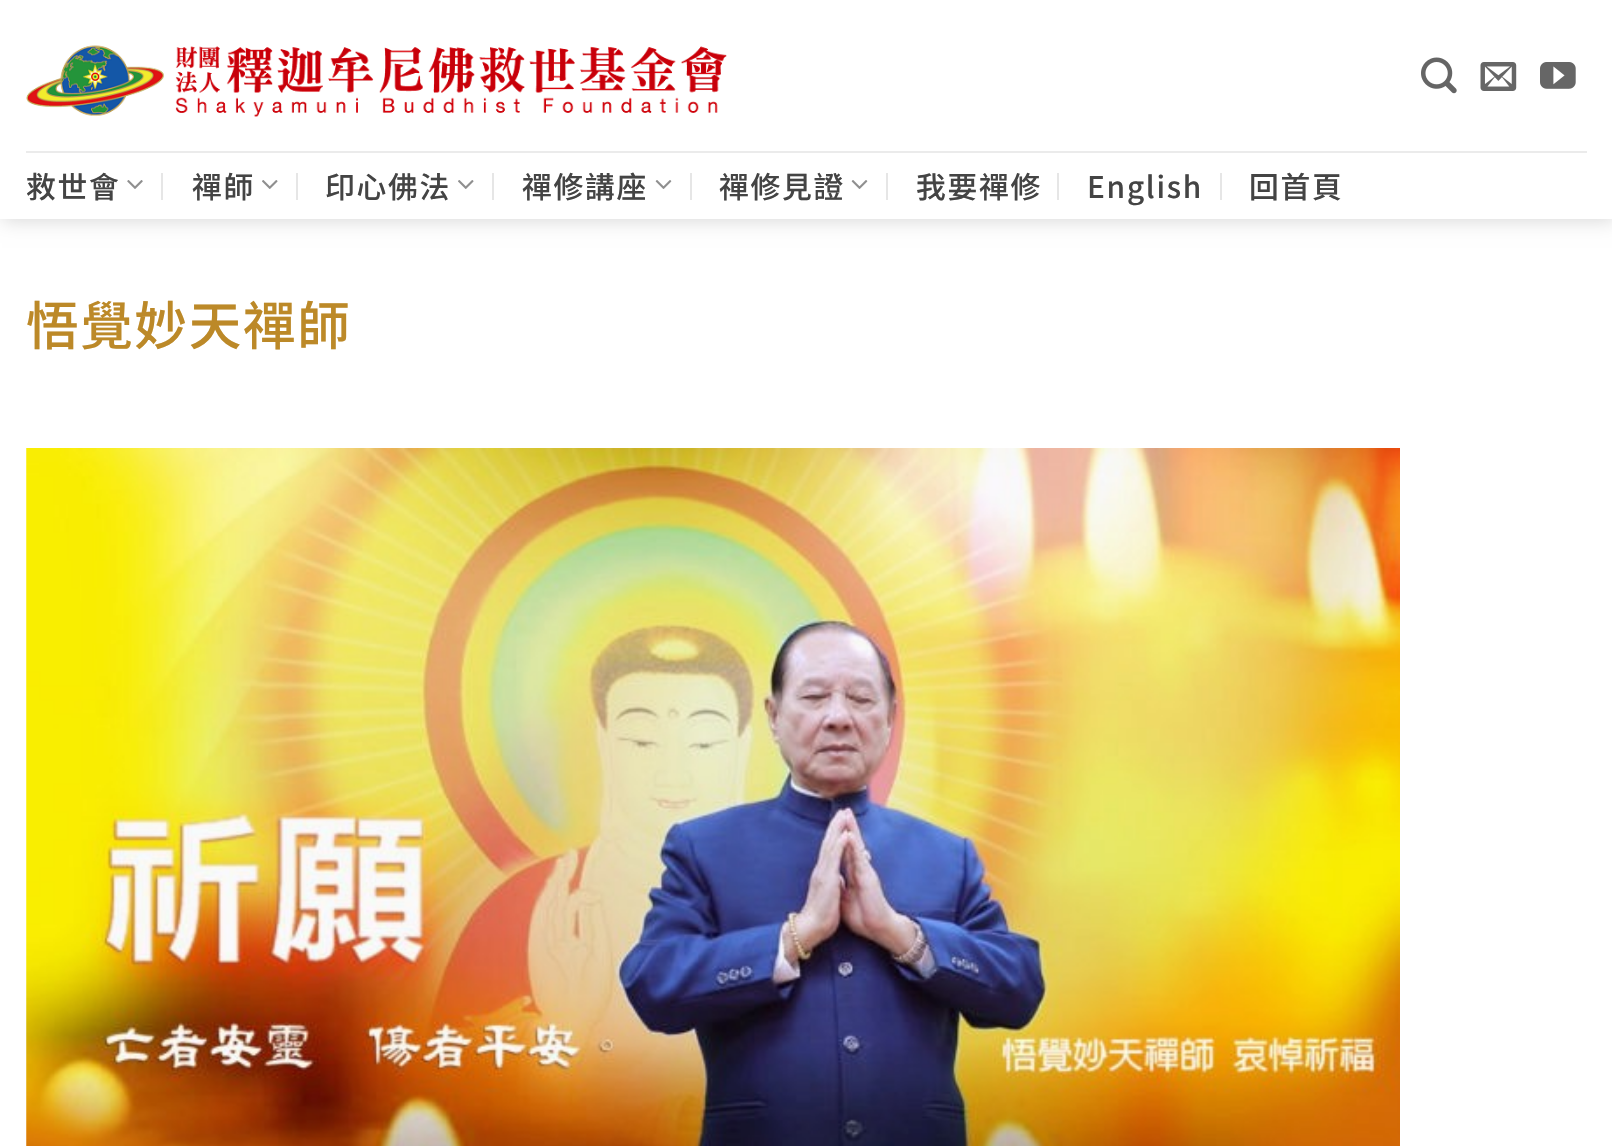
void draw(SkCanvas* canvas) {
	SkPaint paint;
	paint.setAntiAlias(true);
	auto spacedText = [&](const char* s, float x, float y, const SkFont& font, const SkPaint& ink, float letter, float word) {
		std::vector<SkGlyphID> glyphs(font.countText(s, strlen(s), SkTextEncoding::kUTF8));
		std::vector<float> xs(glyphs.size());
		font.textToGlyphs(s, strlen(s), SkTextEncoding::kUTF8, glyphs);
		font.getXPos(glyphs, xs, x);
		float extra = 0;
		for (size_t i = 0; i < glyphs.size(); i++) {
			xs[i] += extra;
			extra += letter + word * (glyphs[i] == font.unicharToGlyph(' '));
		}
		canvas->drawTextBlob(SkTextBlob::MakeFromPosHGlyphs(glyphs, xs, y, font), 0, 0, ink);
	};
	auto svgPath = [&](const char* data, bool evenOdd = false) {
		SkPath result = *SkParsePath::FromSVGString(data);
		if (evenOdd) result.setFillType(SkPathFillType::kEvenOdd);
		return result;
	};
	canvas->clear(0xffffffff);
	canvas->save();
	canvas->clipPath(svgPath("M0 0H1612V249H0ZM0 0H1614V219H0Z", true), true);
	paint.setColor(0x26000000);
	paint.setMaskFilter(SkMaskFilter::MakeBlur(kNormal_SkBlurStyle, 9));
	canvas->drawRect(SkRect::MakeXYWH(2, 2, 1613, 219), paint);
	paint.setMaskFilter(nullptr);
	canvas->restore();
	canvas->drawImageRect(SkImages::DeferredFromEncodedData(SkData::MakeFromFileName("img1.png")), SkRect::MakeXYWH(26, 45, 701, 72), SkSamplingOptions());
	canvas->drawImageRect(SkImages::DeferredFromEncodedData(SkData::MakeFromFileName("img2.png")), SkRect::MakeXYWH(1421, 57, 36, 37), SkSamplingOptions());
	canvas->drawImageRect(SkImages::DeferredFromEncodedData(SkData::MakeFromFileName("img3.png")), SkRect::MakeXYWH(1480, 62, 37, 29), SkSamplingOptions());
	canvas->drawImageRect(SkImages::DeferredFromEncodedData(SkData::MakeFromFileName("img4.png")), SkRect::MakeXYWH(1540, 62, 36, 27), SkSamplingOptions());
	paint.setColor(0xffebebeb);
	canvas->drawRect(SkRect::MakeXYWH(26, 151, 1561, 2), paint);
	SkFont f1(fontMgr->matchFamilyStyle("Noto Sans TC", SkFontStyle(500, SkFontStyle::kNormal_Width, SkFontStyle::kUpright_Slant)), 29.75);
	f1.setSubpixel(true);
	paint.setColor(0xff444444);
	spacedText("救世會", 26, 198, f1, paint, 1.75, 0);
	canvas->drawImageRect(SkImages::DeferredFromEncodedData(SkData::MakeFromFileName("img5.png")), SkRect::MakeXYWH(127, 180, 16, 9), SkSamplingOptions());
	paint.setColor(0xffe6e6e6);
	canvas->drawRect(SkRect::MakeXYWH(161, 173, 2, 27), paint);
	paint.setColor(0xff444444);
	spacedText("禪師", 192, 198, f1, paint, 1.75, 0);
	canvas->drawImageRect(SkImages::DeferredFromEncodedData(SkData::MakeFromFileName("img6.png")), SkRect::MakeXYWH(262, 180, 16, 9), SkSamplingOptions());
	paint.setColor(0xffe6e6e6);
	canvas->drawRect(SkRect::MakeXYWH(296, 173, 2, 27), paint);
	paint.setColor(0xff444444);
	spacedText("印心佛法", 325, 198, f1, paint, 1.75, 0);
	canvas->drawImageRect(SkImages::DeferredFromEncodedData(SkData::MakeFromFileName("img6.png")), SkRect::MakeXYWH(458, 180, 16, 9), SkSamplingOptions());
	paint.setColor(0xffe6e6e6);
	canvas->drawRect(SkRect::MakeXYWH(492, 173, 2, 27), paint);
	paint.setColor(0xff444444);
	spacedText("禪修講座", 522, 198, f1, paint, 1.75, 0);
	canvas->drawImageRect(SkImages::DeferredFromEncodedData(SkData::MakeFromFileName("img7.png")), SkRect::MakeXYWH(655, 180, 17, 9), SkSamplingOptions());
	paint.setColor(0xffe6e6e6);
	canvas->drawRect(SkRect::MakeXYWH(690, 173, 2, 27), paint);
	paint.setColor(0xff444444);
	spacedText("禪修見證", 719, 198, f1, paint, 1.75, 0);
	canvas->drawImageRect(SkImages::DeferredFromEncodedData(SkData::MakeFromFileName("img7.png")), SkRect::MakeXYWH(851, 180, 17, 9), SkSamplingOptions());
	paint.setColor(0xffe6e6e6);
	canvas->drawRect(SkRect::MakeXYWH(886, 173, 2, 27), paint);
	paint.setColor(0xff444444);
	spacedText("我要禪修", 916, 198, f1, paint, 1.75, 0);
	paint.setColor(0xffe6e6e6);
	canvas->drawRect(SkRect::MakeXYWH(1057, 173, 2, 27), paint);
	paint.setColor(0xff444444);
	spacedText("English", 1087, 198, f1, paint, 1.75, 0);
	paint.setColor(0xffe6e6e6);
	canvas->drawRect(SkRect::MakeXYWH(1220, 173, 2, 27), paint);
	paint.setColor(0xff444444);
	spacedText("回首頁", 1249, 198, f1, paint, 1.75, 0);
	paint.setColor(0xe6ffffff);
	canvas->drawRect(SkRect::MakeXYWH(2, 218, 1610, 1), paint);
	SkFont f2(fontMgr->matchFamilyStyle("Noto Sans TC", SkFontStyle(500, SkFontStyle::kNormal_Width, SkFontStyle::kUpright_Slant)), 52.5);
	f2.setSubpixel(true);
	paint.setColor(0xffbc8928);
	spacedText("悟覺妙天禪師", 26, 345, f2, paint, 1.75, 0);
	canvas->drawImageRect(SkImages::DeferredFromEncodedData(SkData::MakeFromFileName("img8.png")), SkRect::MakeXYWH(26, 448, 1374, 698), SkSamplingOptions());
}
